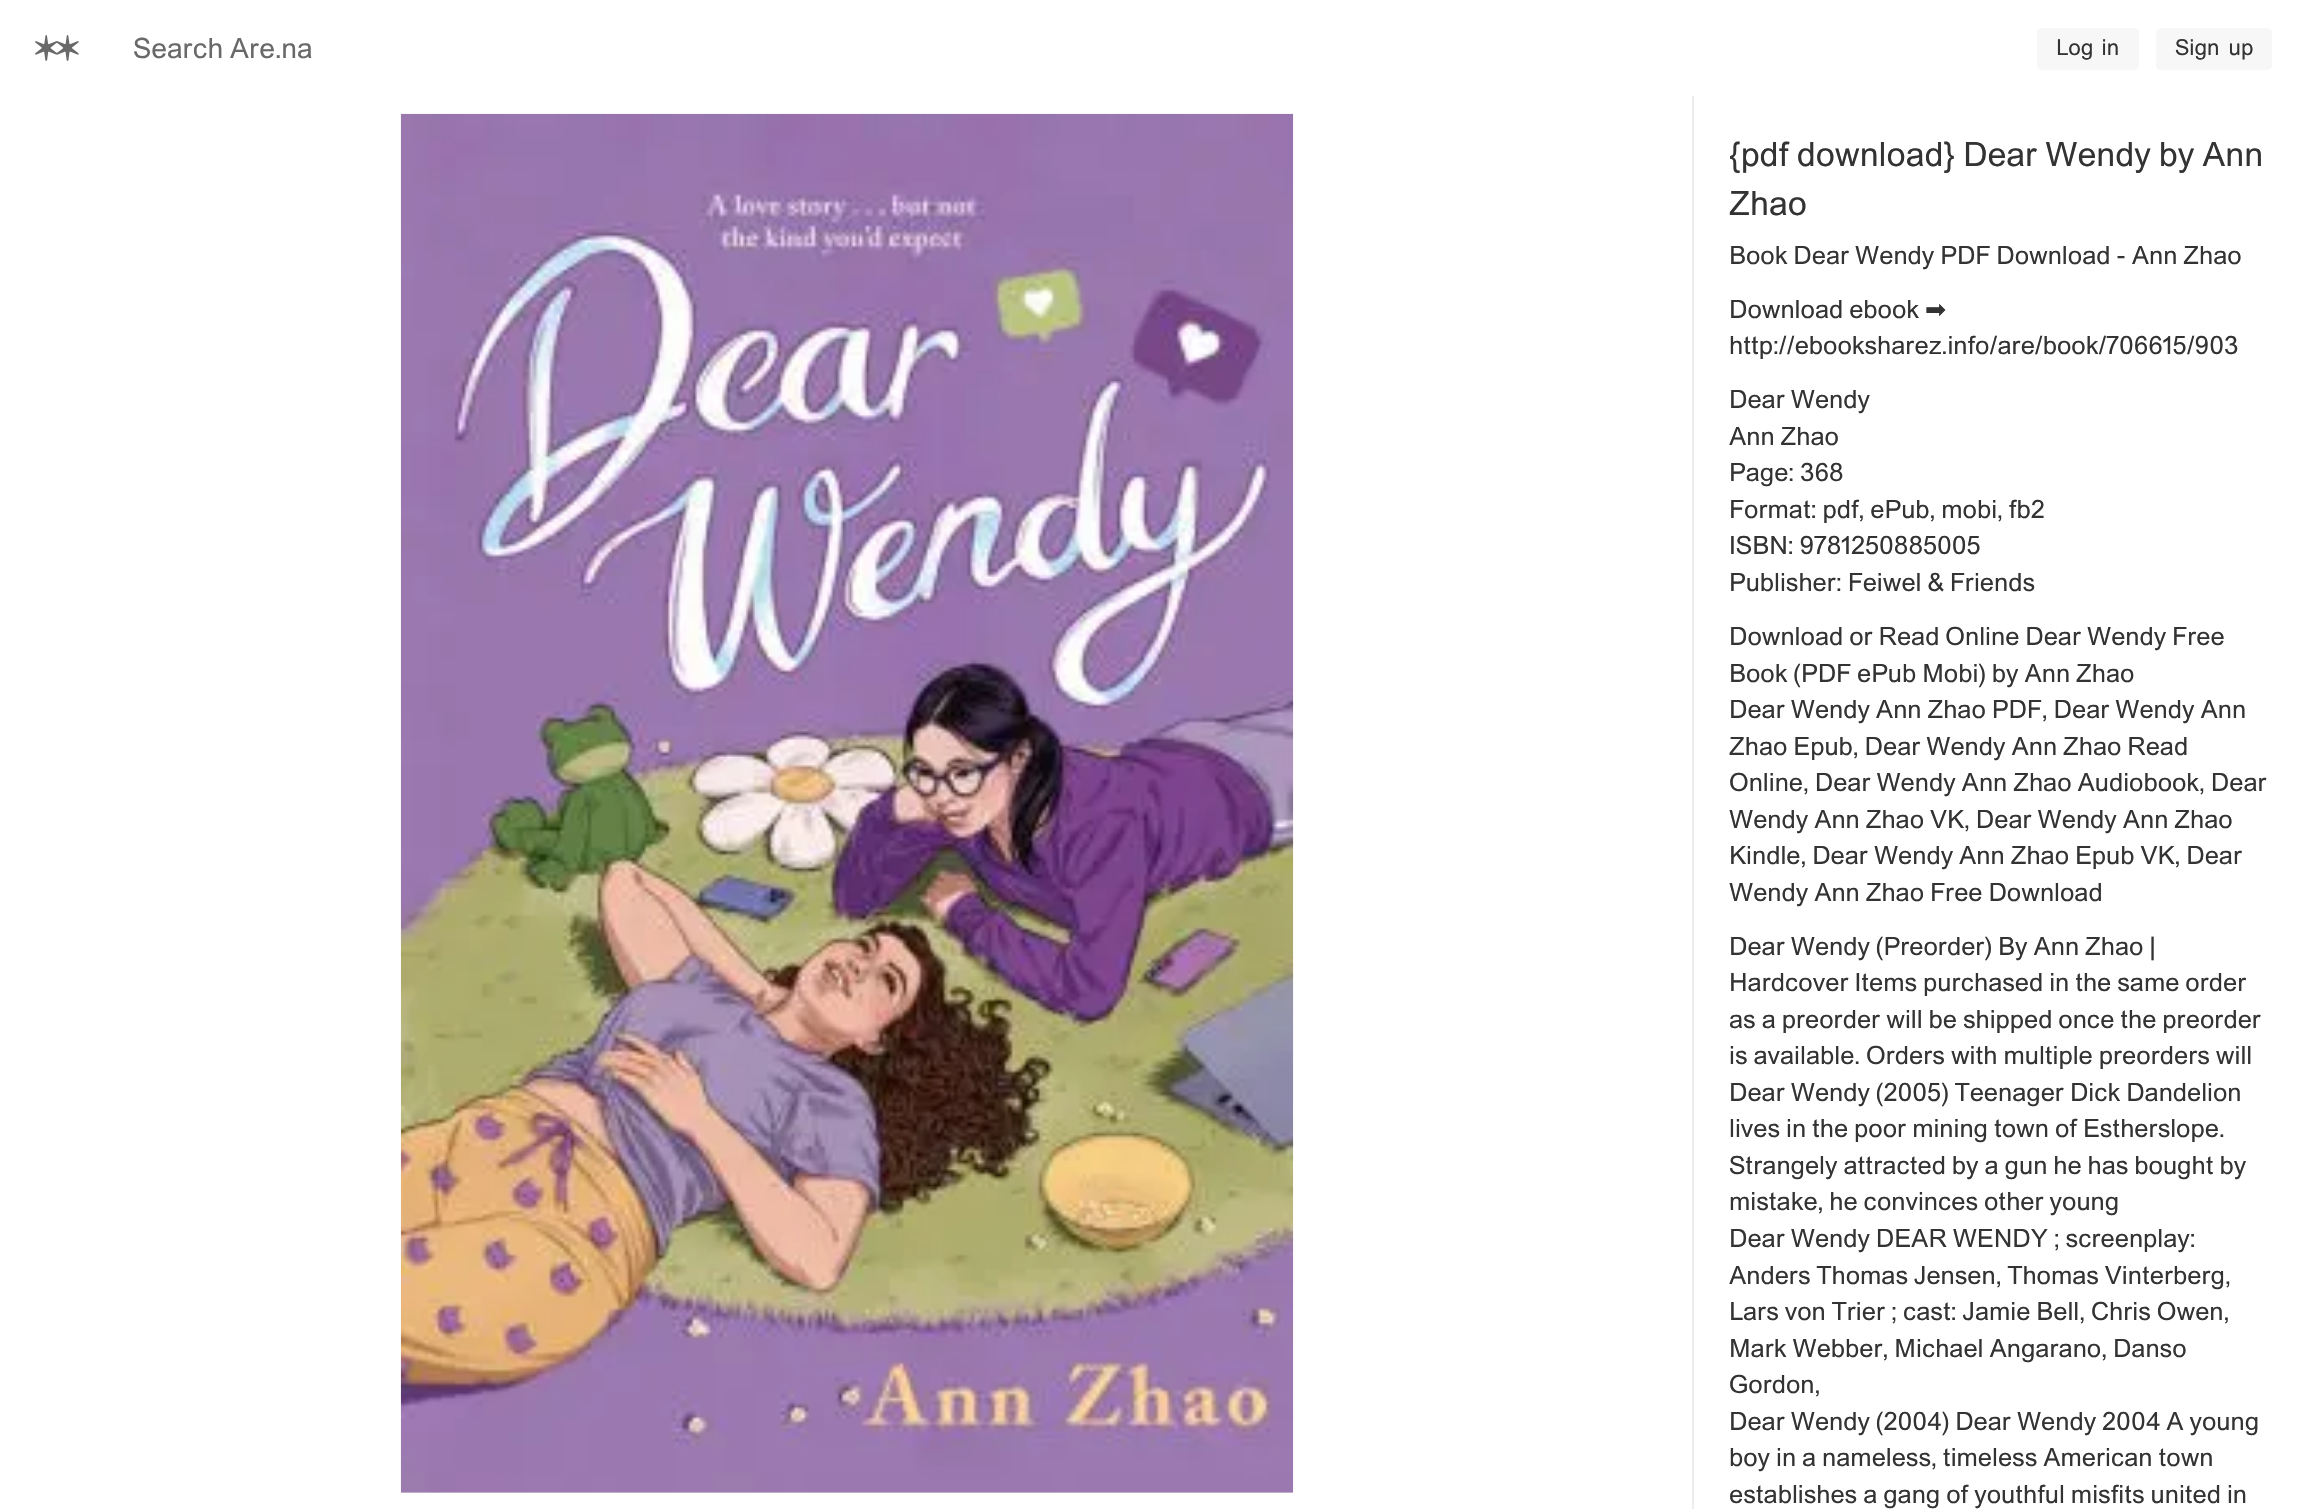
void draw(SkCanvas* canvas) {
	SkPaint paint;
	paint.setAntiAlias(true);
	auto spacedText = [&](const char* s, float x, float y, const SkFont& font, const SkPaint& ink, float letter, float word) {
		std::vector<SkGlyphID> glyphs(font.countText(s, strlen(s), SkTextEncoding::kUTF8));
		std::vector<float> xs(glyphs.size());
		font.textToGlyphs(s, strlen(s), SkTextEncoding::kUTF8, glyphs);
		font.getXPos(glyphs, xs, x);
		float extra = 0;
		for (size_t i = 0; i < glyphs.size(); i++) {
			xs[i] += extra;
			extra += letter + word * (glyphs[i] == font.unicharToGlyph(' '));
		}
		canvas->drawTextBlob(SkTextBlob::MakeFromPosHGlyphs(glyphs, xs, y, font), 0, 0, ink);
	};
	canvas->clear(0xffffffff);
	canvas->drawImageRect(SkImages::DeferredFromEncodedData(SkData::MakeFromFileName("img1.png")), SkRect::MakeXYWH(35, 35, 44, 26), SkSamplingOptions());
	SkFont f1(fontMgr->matchFamilyStyle("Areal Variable", SkFontStyle::Normal()), 28);
	f1.setSubpixel(true);
	paint.setColor(0xff696969);
	canvas->drawString("Search Are.na", 133, 58, f1, paint);
	paint.setColor(0xfff7f7f7);
	canvas->drawRoundRect(SkRect::MakeXYWH(2037, 28, 102, 42), 5, 5, paint);
	SkFont f2(fontMgr->matchFamilyStyle("Areal Variable", SkFontStyle::Normal()), 22);
	f2.setSubpixel(true);
	paint.setColor(0xff333333);
	spacedText("Log in", 2056, 55, f2, paint, 0, 3);
	paint.setColor(0xfff7f7f7);
	canvas->drawRoundRect(SkRect::MakeXYWH(2156, 28, 116, 42), 5, 5, paint);
	paint.setColor(0xff333333);
	spacedText("Sign up", 2175, 55, f2, paint, 0, 4);
	paint.setColor(0xffededed);
	canvas->drawRect(SkRect::MakeXYWH(401, 1492, 892, 1), paint);
	canvas->drawImageRect(SkImages::DeferredFromEncodedData(SkData::MakeFromFileName("img2.png")), SkRect::MakeXYWH(400, 113, 894, 1380), SkSamplingOptions());
	canvas->drawRect(SkRect::MakeXYWH(1692, 96, 2, 1413), paint);
	SkFont f3(fontMgr->matchFamilyStyle("Areal Variable", SkFontStyle::Normal()), 33.6);
	f3.setSubpixel(true);
	paint.setColor(0xff333333);
	canvas->drawString("{pdf download} Dear Wendy by Ann", 1729, 166, f3, paint);
	canvas->drawString("Zhao", 1729, 215, f3, paint);
	SkFont f4(fontMgr->matchFamilyStyle("Areal Variable", SkFontStyle::Normal()), 25.2);
	f4.setSubpixel(true);
	canvas->drawString("Book Dear Wendy PDF Download - Ann Zhao", 1729, 264, f4, paint);
	canvas->drawString("Download ebook", 1729, 318, f4, paint);
	SkFont f5(fontMgr->matchFamilyStyle("DejaVu Sans", SkFontStyle::Normal()), 25.2);
	f5.setSubpixel(true);
	canvas->drawString("➡", 1925, 318, f5, paint);
	canvas->drawString("http://ebooksharez.info/are/book/706615/903", 1729, 354, f4, paint);
	canvas->drawString("Dear Wendy", 1729, 408, f4, paint);
	canvas->drawString("Ann Zhao", 1729, 445, f4, paint);
	canvas->drawString("Page: 368", 1729, 481, f4, paint);
	canvas->drawString("Format: pdf, ePub, mobi, fb2", 1729, 518, f4, paint);
	canvas->drawString("ISBN: 9781250885005", 1729, 554, f4, paint);
	canvas->drawString("Publisher: Feiwel & Friends", 1729, 591, f4, paint);
	canvas->drawString("Download or Read Online Dear Wendy Free", 1729, 645, f4, paint);
	canvas->drawString("Book (PDF ePub Mobi) by Ann Zhao", 1729, 682, f4, paint);
	canvas->drawString("Dear Wendy Ann Zhao PDF, Dear Wendy Ann", 1729, 718, f4, paint);
	canvas->drawString("Zhao Epub, Dear Wendy Ann Zhao Read", 1729, 755, f4, paint);
	canvas->drawString("Online, Dear Wendy Ann Zhao Audiobook, Dear", 1729, 791, f4, paint);
	canvas->drawString("Wendy Ann Zhao VK, Dear Wendy Ann Zhao", 1729, 828, f4, paint);
	canvas->drawString("Kindle, Dear Wendy Ann Zhao Epub VK, Dear", 1729, 864, f4, paint);
	canvas->drawString("Wendy Ann Zhao Free Download", 1729, 901, f4, paint);
	canvas->drawString("Dear Wendy (Preorder) By Ann Zhao |", 1729, 955, f4, paint);
	canvas->drawString("Hardcover Items purchased in the same order", 1729, 991, f4, paint);
	canvas->drawString("as a preorder will be shipped once the preorder", 1729, 1028, f4, paint);
	canvas->drawString("is available. Orders with multiple preorders will", 1729, 1064, f4, paint);
	canvas->drawString("Dear Wendy (2005) Teenager Dick Dandelion", 1729, 1101, f4, paint);
	canvas->drawString("lives in the poor mining town of Estherslope.", 1729, 1137, f4, paint);
	canvas->drawString("Strangely attracted by a gun he has bought by", 1729, 1174, f4, paint);
	canvas->drawString("mistake, he convinces other young", 1729, 1210, f4, paint);
	canvas->drawString("Dear Wendy DEAR WENDY ; screenplay:", 1729, 1247, f4, paint);
	canvas->drawString("Anders Thomas Jensen, Thomas Vinterberg,", 1729, 1284, f4, paint);
	canvas->drawString("Lars von Trier ; cast: Jamie Bell, Chris Owen,", 1729, 1320, f4, paint);
	canvas->drawString("Mark Webber, Michael Angarano, Danso", 1729, 1357, f4, paint);
	canvas->drawString("Gordon,", 1729, 1393, f4, paint);
	canvas->drawString("Dear Wendy (2004) Dear Wendy 2004 A young", 1729, 1430, f4, paint);
	canvas->drawString("boy in a nameless, timeless American town", 1729, 1466, f4, paint);
	canvas->drawString("establishes a gang of youthful misfits united in", 1729, 1503, f4, paint);
}
